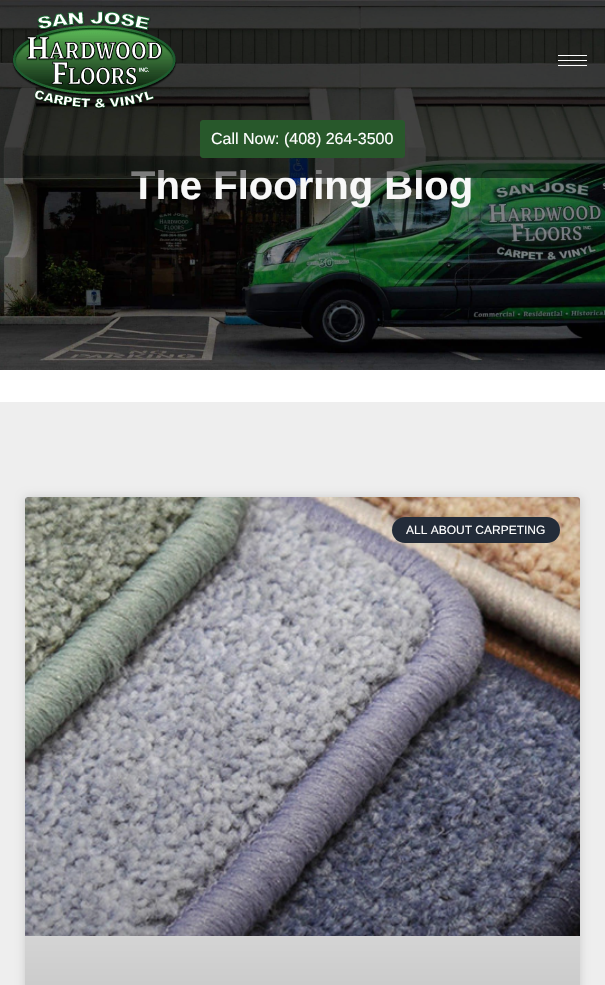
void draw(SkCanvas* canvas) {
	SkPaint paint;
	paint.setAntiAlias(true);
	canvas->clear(0xffffffff);
	canvas->drawImageRect(SkImages::DeferredFromEncodedData(SkData::MakeFromFileName("img2.png")), SkRect::MakeXYWH(0, 0, 605, 370), SkSamplingOptions());
	SkFont f1(fontMgr->matchFamilyStyle("Liberation Sans", SkFontStyle::Bold()), 40);
	f1.setSubpixel(true);
	paint.setColor(0xfff8f8f8);
	canvas->drawString("The Flooring Blog", 131, 199, f1, paint);
	paint.setColor(0x80000000);
	canvas->drawRect(SkRect::MakeXYWH(0, 0, 605, 178), paint);
	canvas->drawImageRect(SkImages::DeferredFromEncodedData(SkData::MakeFromFileName("img1.png")), SkRect::MakeXYWH(12, 11, 165, 98), SkSamplingOptions());
	paint.setColor(0xffffffff);
	canvas->drawRect(SkRect::MakeXYWH(558, 55, 29, 1), paint);
	canvas->drawRect(SkRect::MakeXYWH(558, 60, 29, 1), paint);
	canvas->drawRect(SkRect::MakeXYWH(558, 65, 29, 1), paint);
	paint.setColor(0xff28582b);
	canvas->drawRoundRect(SkRect::MakeXYWH(200.5, 120.5, 204, 37), 2.5, 2.5, paint);
	paint.setStroke(true);
	paint.setStrokeWidth(1);
	canvas->drawRoundRect(SkRect::MakeXYWH(200.5, 120.5, 204, 37), 2.5, 2.5, paint);
	SkFont f2(fontMgr->matchFamilyStyle("Liberation Sans", SkFontStyle::Normal()), 16);
	f2.setSubpixel(true);
	paint.setStroke(false);
	paint.setColor(0xffffffff);
	canvas->drawString("Call Now: (408) 264-3500", 211, 144, f2, paint);
	paint.setColor(0xffeeeeee);
	canvas->drawRect(SkRect::MakeXYWH(0, 402, 605, 583), paint);
	paint.setColor(0x26000000);
	paint.setMaskFilter(SkMaskFilter::MakeBlur(kNormal_SkBlurStyle, 5));
	canvas->drawRoundRect(SkRect::MakeXYWH(25, 497, 555, 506), 3, 3, paint);
	paint.setMaskFilter(nullptr);
	paint.setColor(0xffffffff);
	canvas->drawRoundRect(SkRect::MakeXYWH(25, 497, 555, 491), 3, 3, paint);
	canvas->drawImageRect(SkImages::DeferredFromEncodedData(SkData::MakeFromFileName("img3.png")), SkRect::MakeXYWH(25, 497, 555, 439), SkSamplingOptions());
	{
		const SkColor colors[] = {0x59000000, 0x00000000};
		const float stops[] = {0, 0.75};
		const SkPoint ends[] = {{303, 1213}, {303, 497}};
		paint.setShader(SkGradientShader::MakeLinear(ends, colors, stops, 2, SkTileMode::kClamp));
		paint.setAlpha(255);
	}
	canvas->drawRect(SkRect::MakeXYWH(25, 709, 555, 276), paint);
	paint.setShader(nullptr);
	paint.setColor(0xff232c39);
	canvas->drawRoundRect(SkRect::MakeXYWH(392, 517, 168, 26), 13, 13, paint);
	SkFont f3(fontMgr->matchFamilyStyle("Liberation Sans", SkFontStyle::Normal()), 12);
	f3.setSubpixel(true);
	paint.setColor(0xffffffff);
	canvas->drawString("ALL ABOUT CARPETING", 406, 534, f3, paint);
}
